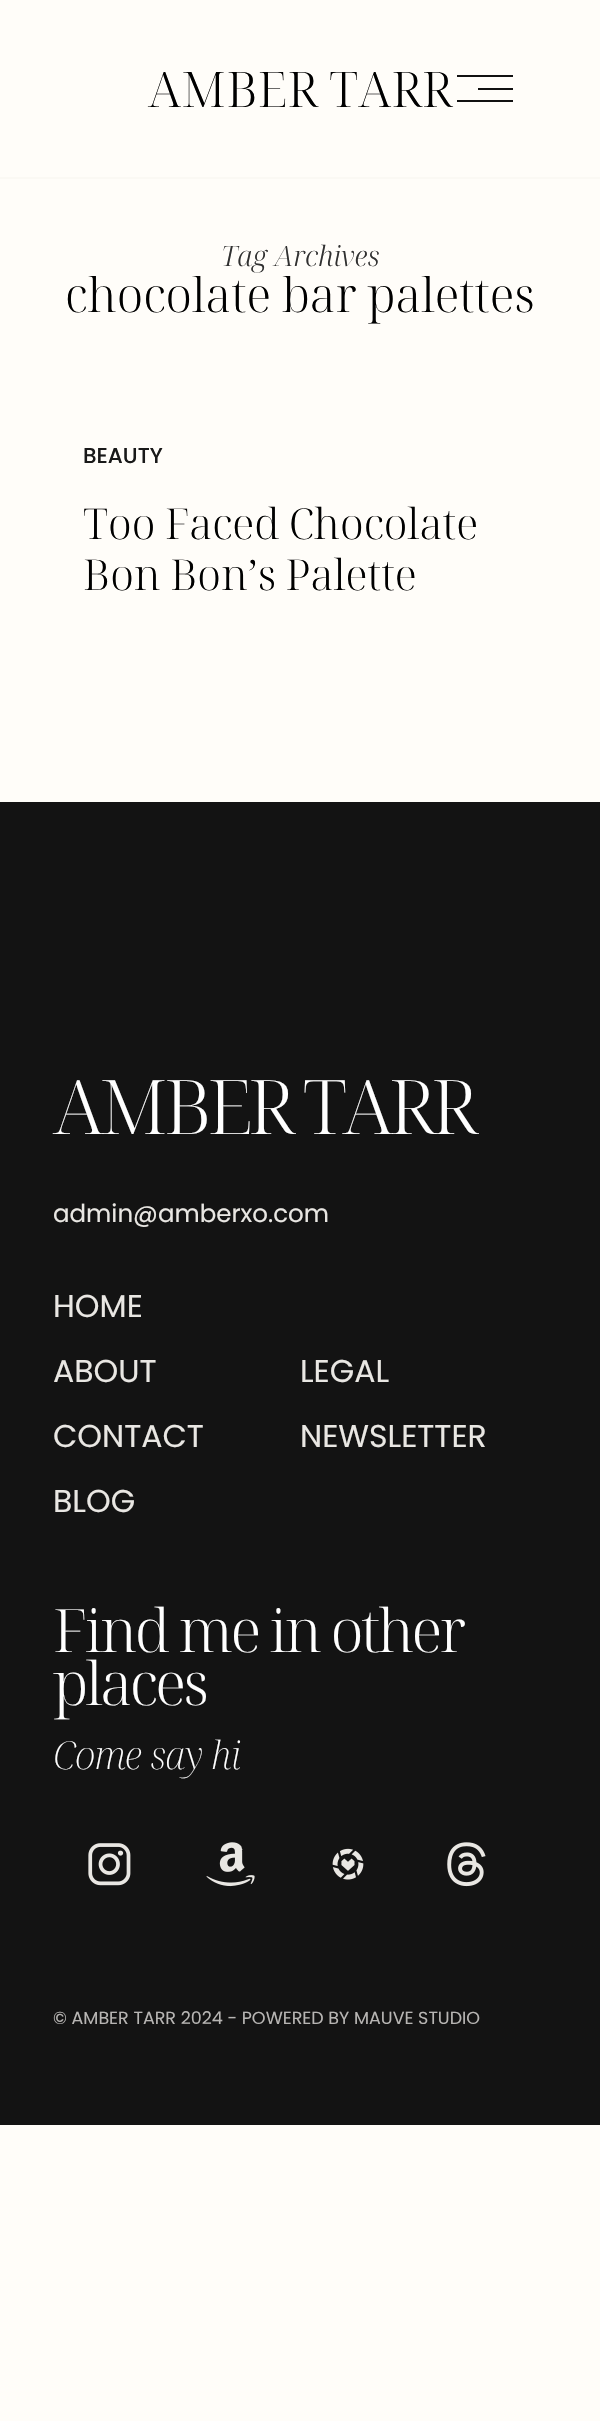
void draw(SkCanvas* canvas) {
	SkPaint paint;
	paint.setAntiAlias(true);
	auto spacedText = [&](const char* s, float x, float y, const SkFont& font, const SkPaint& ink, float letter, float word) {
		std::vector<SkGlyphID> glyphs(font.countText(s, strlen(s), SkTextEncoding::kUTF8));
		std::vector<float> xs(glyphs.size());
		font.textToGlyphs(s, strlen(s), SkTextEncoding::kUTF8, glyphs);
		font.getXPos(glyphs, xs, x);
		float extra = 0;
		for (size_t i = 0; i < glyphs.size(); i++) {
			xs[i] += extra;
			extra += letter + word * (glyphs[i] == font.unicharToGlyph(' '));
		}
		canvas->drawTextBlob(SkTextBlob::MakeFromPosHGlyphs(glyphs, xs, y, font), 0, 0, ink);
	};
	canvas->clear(0xfffffdf9);
	paint.setColor(0xfffbf9f4);
	canvas->drawRect(SkRect::MakeXYWH(0, 177, 600, 2), paint);
	SkFont f1(fontMgr->matchFamilyStyle("Noto Serif Display", SkFontStyle(300, SkFontStyle::kNormal_Width, SkFontStyle::kUpright_Slant)), 49);
	f1.setSubpixel(true);
	paint.setColor(0xff000000);
	canvas->drawString("AMBER TARR", 148, 107, f1, paint);
	paint.setColor(0xff111111);
	canvas->drawRect(SkRect::MakeXYWH(478, 88, 35, 2), paint);
	canvas->drawRect(SkRect::MakeXYWH(457, 75, 56, 2), paint);
	canvas->drawRect(SkRect::MakeXYWH(457, 100, 56, 2), paint);
	SkFont f2(fontMgr->matchFamilyStyle("Noto Serif Display", SkFontStyle(300, SkFontStyle::kNormal_Width, SkFontStyle::kItalic_Slant)), 28);
	f2.setSubpixel(true);
	paint.setColor(0xff303030);
	canvas->drawString("Tag Archives", 221, 266, f2, paint);
	SkFont f3(fontMgr->matchFamilyStyle("Noto Serif Display", SkFontStyle(300, SkFontStyle::kNormal_Width, SkFontStyle::kUpright_Slant)), 47.5);
	f3.setSubpixel(true);
	paint.setColor(0xff000000);
	canvas->drawString("chocolate bar palettes", 65, 312, f3, paint);
	SkFont f4(fontMgr->matchFamilyStyle("Poppins", SkFontStyle(500, SkFontStyle::kNormal_Width, SkFontStyle::kUpright_Slant)), 21.5);
	f4.setSubpixel(true);
	paint.setColor(0xff191919);
	canvas->drawString("BEAUTY", 83, 463, f4, paint);
	SkFont f5(fontMgr->matchFamilyStyle("Noto Serif Display", SkFontStyle(300, SkFontStyle::kNormal_Width, SkFontStyle::kUpright_Slant)), 42.5);
	f5.setSubpixel(true);
	paint.setColor(0xff000000);
	canvas->drawString("Too Faced Chocolate", 83, 539, f5, paint);
	canvas->drawString("Bon Bon’s Palette", 83, 590, f5, paint);
	paint.setColor(0xff131313);
	canvas->drawRect(SkRect::MakeXYWH(0, 802, 600, 1323), paint);
	SkFont f6(fontMgr->matchFamilyStyle("Noto Serif Display", SkFontStyle(300, SkFontStyle::kNormal_Width, SkFontStyle::kUpright_Slant)), 75.25);
	f6.setSubpixel(true);
	paint.setColor(0xffffffff);
	spacedText("AMBER TARR", 53, 1134, f6, paint, -4.75, 0);
	SkFont f7(fontMgr->matchFamilyStyle("Poppins", SkFontStyle::Normal()), 24.5);
	f7.setSubpixel(true);
	paint.setColor(0xffe9e7e3);
	canvas->drawString("admin@amberxo.com", 53, 1222, f7, paint);
	SkFont f8(fontMgr->matchFamilyStyle("Poppins", SkFontStyle::Normal()), 31.5);
	f8.setSubpixel(true);
	canvas->drawString("HOME", 53, 1317, f8, paint);
	canvas->drawString("ABOUT", 53, 1382, f8, paint);
	canvas->drawString("CONTACT", 53, 1447, f8, paint);
	canvas->drawString("BLOG", 53, 1512, f8, paint);
	canvas->drawString("LEGAL", 300, 1382, f8, paint);
	canvas->drawString("NEWSLETTER", 300, 1447, f8, paint);
	SkFont f9(fontMgr->matchFamilyStyle("Noto Serif Display", SkFontStyle(300, SkFontStyle::kNormal_Width, SkFontStyle::kUpright_Slant)), 59.5);
	f9.setSubpixel(true);
	paint.setColor(0xffffffff);
	spacedText("Find me in other", 53, 1652, f9, paint, -2.6, 0);
	spacedText("places", 53, 1705, f9, paint, -2.6, 0);
	SkFont f10(fontMgr->matchFamilyStyle("Noto Serif Display", SkFontStyle(200, SkFontStyle::kNormal_Width, SkFontStyle::kItalic_Slant)), 38.5);
	f10.setSubpixel(true);
	spacedText("Come say hi", 53, 1769, f10, paint, -0.5, 0);
	canvas->drawImageRect(SkImages::DeferredFromEncodedData(SkData::MakeFromFileName("img1.png")), SkRect::MakeXYWH(88, 1843, 43, 43), SkSamplingOptions());
	canvas->drawImageRect(SkImages::DeferredFromEncodedData(SkData::MakeFromFileName("img2.png")), SkRect::MakeXYWH(206, 1842, 49, 45), SkSamplingOptions());
	canvas->drawImageRect(SkImages::DeferredFromEncodedData(SkData::MakeFromFileName("img3.png")), SkRect::MakeXYWH(332, 1848, 32, 32), SkSamplingOptions());
	canvas->drawImageRect(SkImages::DeferredFromEncodedData(SkData::MakeFromFileName("img4.png")), SkRect::MakeXYWH(447, 1842, 39, 45), SkSamplingOptions());
	SkFont f11(fontMgr->matchFamilyStyle("Poppins", SkFontStyle::Normal()), 17.5);
	f11.setSubpixel(true);
	paint.setColor(0xffb7b5b3);
	canvas->drawString("© AMBER TARR 2024 - POWERED BY MAUVE STUDIO", 53, 2024, f11, paint);
}
